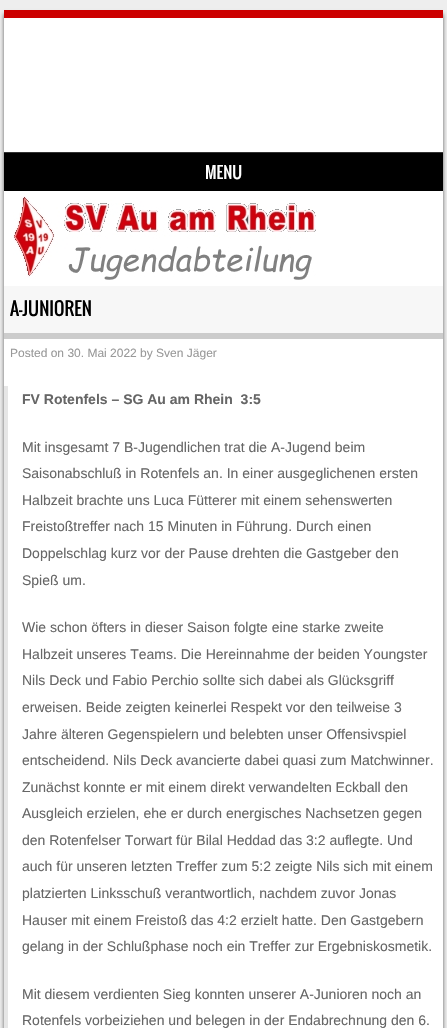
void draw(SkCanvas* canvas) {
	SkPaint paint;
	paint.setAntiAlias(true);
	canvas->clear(0xffeeeeee);
	paint.setColor(0x99000000);
	paint.setMaskFilter(SkMaskFilter::MakeBlur(kNormal_SkBlurStyle, 2));
	canvas->drawRect(SkRect::MakeXYWH(4, 14, 439, 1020), paint);
	paint.setMaskFilter(nullptr);
	paint.setColor(0xffffffff);
	canvas->drawRect(SkRect::MakeXYWH(4, 18, 439, 1010), paint);
	paint.setColor(0xffcc0000);
	canvas->drawRect(SkRect::MakeXYWH(4, 10, 439, 8), paint);
	paint.setColor(0xff000000);
	canvas->drawRect(SkRect::MakeXYWH(4, 153, 439, 38), paint);
	paint.setColor(0xff333333);
	canvas->drawRect(SkRect::MakeXYWH(4, 152, 439, 1), paint);
	SkFont f1(fontMgr->matchFamilyStyle("Oswald", SkFontStyle::Normal()), 16);
	f1.setSubpixel(true);
	paint.setColor(0xffffffff);
	canvas->drawString("MENU", 205, 179, f1, paint);
	canvas->drawImageRect(SkImages::DeferredFromEncodedData(SkData::MakeFromFileName("img1.png")), SkRect::MakeXYWH(13, 196, 303, 84), SkSamplingOptions());
	paint.setColor(0xfff7f7f7);
	canvas->drawRect(SkRect::MakeXYWH(4, 286, 439, 47), paint);
	paint.setColor(0xffcccccc);
	canvas->drawRect(SkRect::MakeXYWH(4, 333, 439, 6), paint);
	SkFont f2(fontMgr->matchFamilyStyle("Oswald", SkFontStyle::Normal()), 18);
	f2.setSubpixel(true);
	paint.setColor(0xff000000);
	canvas->drawString("A-JUNIOREN", 10, 316, f2, paint);
	SkFont f3(fontMgr->matchFamilyStyle("Liberation Sans", SkFontStyle::Normal()), 12);
	f3.setSubpixel(true);
	paint.setColor(0xff999999);
	canvas->drawString("Posted on 30. Mai 2022 by Sven Jäger", 10, 357, f3, paint);
	paint.setColor(0xffe6e6e6);
	canvas->drawRect(SkRect::MakeXYWH(4, 386, 4, 642), paint);
	SkFont f4(fontMgr->matchFamilyStyle("Liberation Sans", SkFontStyle::Bold()), 14);
	f4.setSubpixel(true);
	paint.setColor(0xff666666);
	canvas->drawString("FV Rotenfels – SG Au am Rhein  3:5", 22, 404, f4, paint);
	SkFont f5(fontMgr->matchFamilyStyle("Liberation Sans", SkFontStyle::Normal()), 14);
	f5.setSubpixel(true);
	canvas->drawString("Mit insgesamt 7 B-Jugendlichen trat die A-Jugend beim", 22, 452, f5, paint);
	canvas->drawString("Saisonabschluß in Rotenfels an. In einer ausgeglichenen ersten", 22, 478, f5, paint);
	canvas->drawString("Halbzeit brachte uns Luca Fütterer mit einem sehenswerten", 22, 505, f5, paint);
	canvas->drawString("Freistoßtreffer nach 15 Minuten in Führung. Durch einen", 22, 531, f5, paint);
	canvas->drawString("Doppelschlag kurz vor der Pause drehten die Gastgeber den", 22, 558, f5, paint);
	canvas->drawString("Spieß um.", 22, 585, f5, paint);
	canvas->drawString("Wie schon öfters in dieser Saison folgte eine starke zweite", 22, 632, f5, paint);
	canvas->drawString("Halbzeit unseres Teams. Die Hereinnahme der beiden Youngster", 22, 659, f5, paint);
	canvas->drawString("Nils Deck und Fabio Perchio sollte sich dabei als Glücksgriff", 22, 685, f5, paint);
	canvas->drawString("erweisen. Beide zeigten keinerlei Respekt vor den teilweise 3", 22, 712, f5, paint);
	canvas->drawString("Jahre älteren Gegenspielern und belebten unser Offensivspiel", 22, 739, f5, paint);
	canvas->drawString("entscheidend. Nils Deck avancierte dabei quasi zum Matchwinner.", 22, 765, f5, paint);
	canvas->drawString("Zunächst konnte er mit einem direkt verwandelten Eckball den", 22, 792, f5, paint);
	canvas->drawString("Ausgleich erzielen, ehe er durch energisches Nachsetzen gegen", 22, 818, f5, paint);
	canvas->drawString("den Rotenfelser Torwart für Bilal Heddad das 3:2 auflegte. Und", 22, 845, f5, paint);
	canvas->drawString("auch für unseren letzten Treffer zum 5:2 zeigte Nils sich mit einem", 22, 871, f5, paint);
	canvas->drawString("platzierten Linksschuß verantwortlich, nachdem zuvor Jonas", 22, 898, f5, paint);
	canvas->drawString("Hauser mit einem Freistoß das 4:2 erzielt hatte. Den Gastgebern", 22, 925, f5, paint);
	canvas->drawString("gelang in der Schlußphase noch ein Treffer zur Ergebniskosmetik.", 22, 951, f5, paint);
	canvas->drawString("Mit diesem verdienten Sieg konnten unserer A-Junioren noch an", 22, 999, f5, paint);
	canvas->drawString("Rotenfels vorbeiziehen und belegen in der Endabrechnung den 6.", 22, 1025, f5, paint);
}
